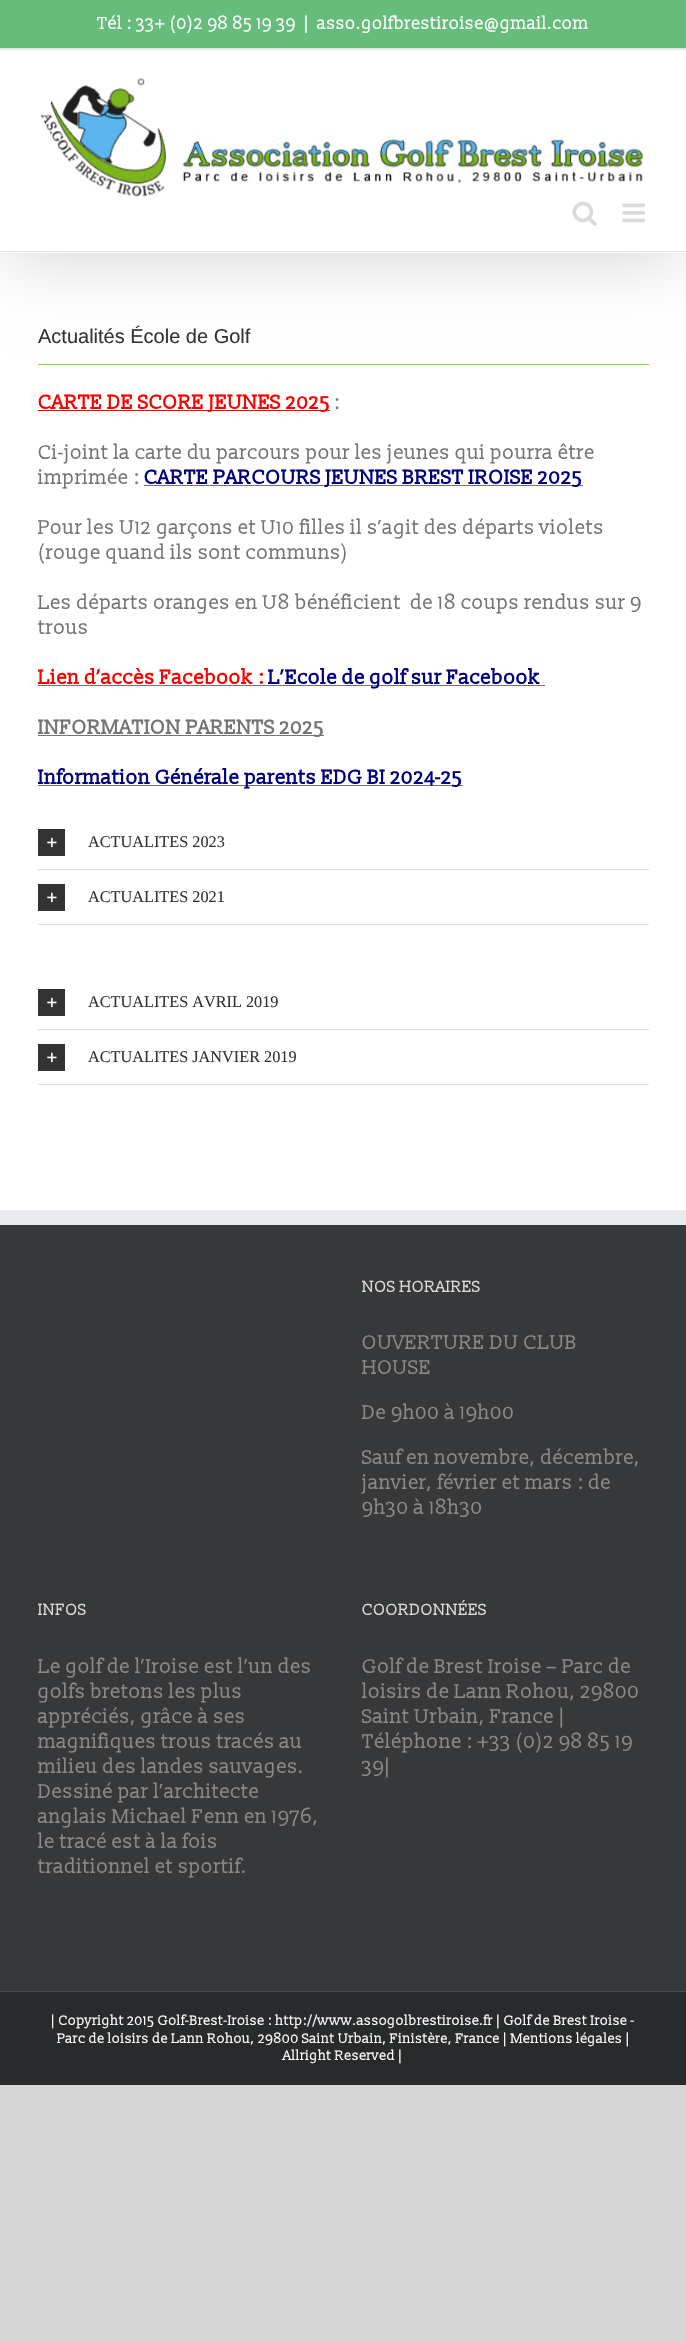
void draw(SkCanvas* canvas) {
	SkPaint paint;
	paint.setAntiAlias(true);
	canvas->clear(0xffd7d6d6);
	paint.setColor(0xffffffff);
	canvas->drawRect(SkRect::MakeXYWH(0, 253, 686, 957), paint);
	paint.setColor(0x24000000);
	paint.setMaskFilter(SkMaskFilter::MakeBlur(kNormal_SkBlurStyle, 31));
	canvas->drawRect(SkRect::MakeXYWH(3, 15, 681, 248), paint);
	paint.setMaskFilter(nullptr);
	paint.setColor(0xff65bc7b);
	canvas->drawRect(SkRect::MakeXYWH(0, 0, 686, 48), paint);
	paint.setColor(0xffe5e5e5);
	canvas->drawRect(SkRect::MakeXYWH(0, 48, 686, 2), paint);
	SkFont f1(fontMgr->matchFamilyStyle("Slabo 13px", SkFontStyle::Normal()), 17.5);
	f1.setSubpixel(true);
	paint.setColor(0xffffffff);
	canvas->drawString("Tél : 33+ (0)2 98 85 19 39", 97, 29, f1, paint);
	canvas->drawString("|", 304, 29, f1, paint);
	canvas->drawString("asso.golfbrestiroise@gmail.com", 317, 29, f1, paint);
	canvas->drawRect(SkRect::MakeXYWH(0, 50, 686, 203), paint);
	paint.setColor(0xffe5e5e5);
	canvas->drawRect(SkRect::MakeXYWH(0, 251, 686, 1), paint);
	canvas->drawImageRect(SkImages::DeferredFromEncodedData(SkData::MakeFromFileName("img1.png")), SkRect::MakeXYWH(40, 78, 604, 119), SkSamplingOptions());
	canvas->drawImageRect(SkImages::DeferredFromEncodedData(SkData::MakeFromFileName("img2.png")), SkRect::MakeXYWH(572, 201, 25, 25), SkSamplingOptions());
	canvas->drawImageRect(SkImages::DeferredFromEncodedData(SkData::MakeFromFileName("img3.png")), SkRect::MakeXYWH(622, 203, 23, 20), SkSamplingOptions());
	paint.setColor(0xff81d742);
	canvas->drawRect(SkRect::MakeXYWH(38, 364, 611, 1), paint);
	SkFont f2(fontMgr->matchFamilyStyle("Liberation Sans", SkFontStyle::Normal()), 20);
	f2.setSubpixel(true);
	paint.setColor(0xff333333);
	canvas->drawString("Actualités École de Golf", 38, 343, f2, paint);
	paint.setColor(0xffff0000);
	canvas->drawRect(SkRect::MakeXYWH(38, 410, 292, 1), paint);
	SkFont f3(fontMgr->matchFamilyStyle("Slabo 13px", SkFontStyle::Bold()), 20);
	f3.setSubpixel(true);
	canvas->drawString("CARTE DE SCORE JEUNES 2025", 38, 409, f3, paint);
	SkFont f4(fontMgr->matchFamilyStyle("Slabo 13px", SkFontStyle::Normal()), 20);
	f4.setSubpixel(true);
	paint.setColor(0xff747474);
	canvas->drawString(":", 334, 409, f4, paint);
	canvas->drawString("Ci-joint la carte du parcours pour les jeunes qui pourra être", 38, 459, f4, paint);
	canvas->drawString("imprimée :", 38, 484, f4, paint);
	canvas->drawRect(SkRect::MakeXYWH(144, 485, 439, 1), paint);
	paint.setColor(0xff000080);
	canvas->drawString("CARTE PARCOURS JEUNES BREST IROISE 2025", 144, 484, f3, paint);
	paint.setColor(0xff747474);
	canvas->drawString("Pour les U12 garçons et U10 filles il s’agit des départs violets", 38, 534, f4, paint);
	canvas->drawString("(rouge quand ils sont communs)", 38, 559, f4, paint);
	canvas->drawString("Les départs oranges en U8 bénéficient  de 18 coups rendus sur 9", 38, 609, f4, paint);
	canvas->drawString("trous", 38, 634, f4, paint);
	paint.setColor(0xffff0000);
	canvas->drawString("Lien d’accès Facebook :", 38, 684, f3, paint);
	paint.setColor(0xff747474);
	canvas->drawRect(SkRect::MakeXYWH(38, 685, 507, 1), paint);
	paint.setColor(0xff000080);
	canvas->drawString("L’Ecole de golf sur Facebook", 268, 684, f3, paint);
	paint.setColor(0xff747474);
	canvas->drawRect(SkRect::MakeXYWH(38, 735, 286, 1), paint);
	canvas->drawString("INFORMATION PARENTS 2025", 38, 734, f3, paint);
	canvas->drawRect(SkRect::MakeXYWH(38, 785, 425, 1), paint);
	paint.setColor(0xff000080);
	canvas->drawString("Information Générale parents EDG BI 2024-25", 38, 784, f3, paint);
	paint.setColor(0xffe0dede);
	canvas->drawRect(SkRect::MakeXYWH(38, 869, 611, 1), paint);
	paint.setColor(0xff333333);
	canvas->drawRect(SkRect::MakeXYWH(38, 829, 27, 27), paint);
	canvas->drawImageRect(SkImages::DeferredFromEncodedData(SkData::MakeFromFileName("img4.png")), SkRect::MakeXYWH(47, 837, 10, 11), SkSamplingOptions());
	SkFont f5(fontMgr->matchFamilyStyle("Liberation Serif", SkFontStyle::Normal()), 16.25);
	f5.setSubpixel(true);
	canvas->drawString("ACTUALITES 2023", 88, 847, f5, paint);
	paint.setColor(0xffe0dede);
	canvas->drawRect(SkRect::MakeXYWH(38, 924, 611, 1), paint);
	paint.setColor(0xff333333);
	canvas->drawRect(SkRect::MakeXYWH(38, 884, 27, 27), paint);
	canvas->drawImageRect(SkImages::DeferredFromEncodedData(SkData::MakeFromFileName("img4.png")), SkRect::MakeXYWH(47, 892, 10, 11), SkSamplingOptions());
	canvas->drawString("ACTUALITES 2021", 88, 902, f5, paint);
	paint.setColor(0xffe0dede);
	canvas->drawRect(SkRect::MakeXYWH(38, 1029, 611, 1), paint);
	paint.setColor(0xff333333);
	canvas->drawRect(SkRect::MakeXYWH(38, 989, 27, 27), paint);
	canvas->drawImageRect(SkImages::DeferredFromEncodedData(SkData::MakeFromFileName("img4.png")), SkRect::MakeXYWH(47, 997, 10, 11), SkSamplingOptions());
	canvas->drawString("ACTUALITES AVRIL 2019", 88, 1007, f5, paint);
	paint.setColor(0xffe0dede);
	canvas->drawRect(SkRect::MakeXYWH(38, 1084, 611, 1), paint);
	paint.setColor(0xff333333);
	canvas->drawRect(SkRect::MakeXYWH(38, 1044, 27, 27), paint);
	canvas->drawImageRect(SkImages::DeferredFromEncodedData(SkData::MakeFromFileName("img4.png")), SkRect::MakeXYWH(47, 1052, 10, 11), SkSamplingOptions());
	canvas->drawString("ACTUALITES JANVIER 2019", 88, 1062, f5, paint);
	paint.setColor(0xff363839);
	canvas->drawRect(SkRect::MakeXYWH(0, 1225, 686, 766), paint);
	paint.setColor(0xffe9eaee);
	canvas->drawRect(SkRect::MakeXYWH(0, 1210, 686, 15), paint);
	SkFont f6(fontMgr->matchFamilyStyle("Slabo 13px", SkFontStyle::Normal()), 16.25);
	f6.setSubpixel(true);
	paint.setColor(0xffdddddd);
	canvas->drawString("NOS HORAIRES", 362, 1292, f6, paint);
	paint.setColor(0xff8c8989);
	canvas->drawString("OUVERTURE DU CLUB", 362, 1349, f4, paint);
	canvas->drawString("HOUSE", 362, 1374, f4, paint);
	canvas->drawString("De 9h00 à 19h00", 362, 1419, f4, paint);
	canvas->drawString("Sauf en novembre, décembre,", 362, 1464, f4, paint);
	canvas->drawString("janvier, février et mars : de", 362, 1489, f4, paint);
	canvas->drawString("9h30 à 18h30", 362, 1514, f4, paint);
	paint.setColor(0xffdddddd);
	canvas->drawString("INFOS", 38, 1615, f6, paint);
	paint.setColor(0xff8c8989);
	canvas->drawString("Le golf de l’Iroise est l’un des", 38, 1673, f4, paint);
	canvas->drawString("golfs bretons les plus", 38, 1698, f4, paint);
	canvas->drawString("appréciés, grâce à ses", 38, 1723, f4, paint);
	canvas->drawString("magnifiques trous tracés au", 38, 1748, f4, paint);
	canvas->drawString("milieu des landes sauvages.", 38, 1773, f4, paint);
	canvas->drawString("Dessiné par l’architecte", 38, 1798, f4, paint);
	canvas->drawString("anglais Michael Fenn en 1976,", 38, 1823, f4, paint);
	canvas->drawString("le tracé est à la fois", 38, 1848, f4, paint);
	canvas->drawString("traditionnel et sportif.", 38, 1873, f4, paint);
	paint.setColor(0xffdddddd);
	canvas->drawString("COORDONNÉES", 362, 1615, f6, paint);
	paint.setColor(0xff8c8989);
	canvas->drawString("Golf de Brest Iroise – Parc de", 362, 1673, f4, paint);
	canvas->drawString("loisirs de Lann Rohou, 29800", 362, 1698, f4, paint);
	canvas->drawString("Saint Urbain, France |", 362, 1723, f4, paint);
	canvas->drawString("Téléphone : +33 (0)2 98 85 19", 362, 1748, f4, paint);
	canvas->drawString("39|", 362, 1773, f4, paint);
	paint.setColor(0xff282a2b);
	canvas->drawRect(SkRect::MakeXYWH(0, 1992, 686, 93), paint);
	paint.setColor(0xff4b4c4d);
	canvas->drawRect(SkRect::MakeXYWH(0, 1991, 686, 1), paint);
	SkFont f7(fontMgr->matchFamilyStyle("Slabo 13px", SkFontStyle::Normal()), 13.75);
	f7.setSubpixel(true);
	paint.setColor(0xffffffff);
	canvas->drawString("| Copyright 2015 Golf-Brest-Iroise : http://www.assogolbrestiroise.fr | Golf de Brest Iroise -", 51, 2025, f7, paint);
	canvas->drawString("Parc de loisirs de Lann Rohou, 29800 Saint Urbain, Finistère, France | Mentions légales |", 57, 2043, f7, paint);
	canvas->drawString("Allright Reserved |", 283, 2060, f7, paint);
}
